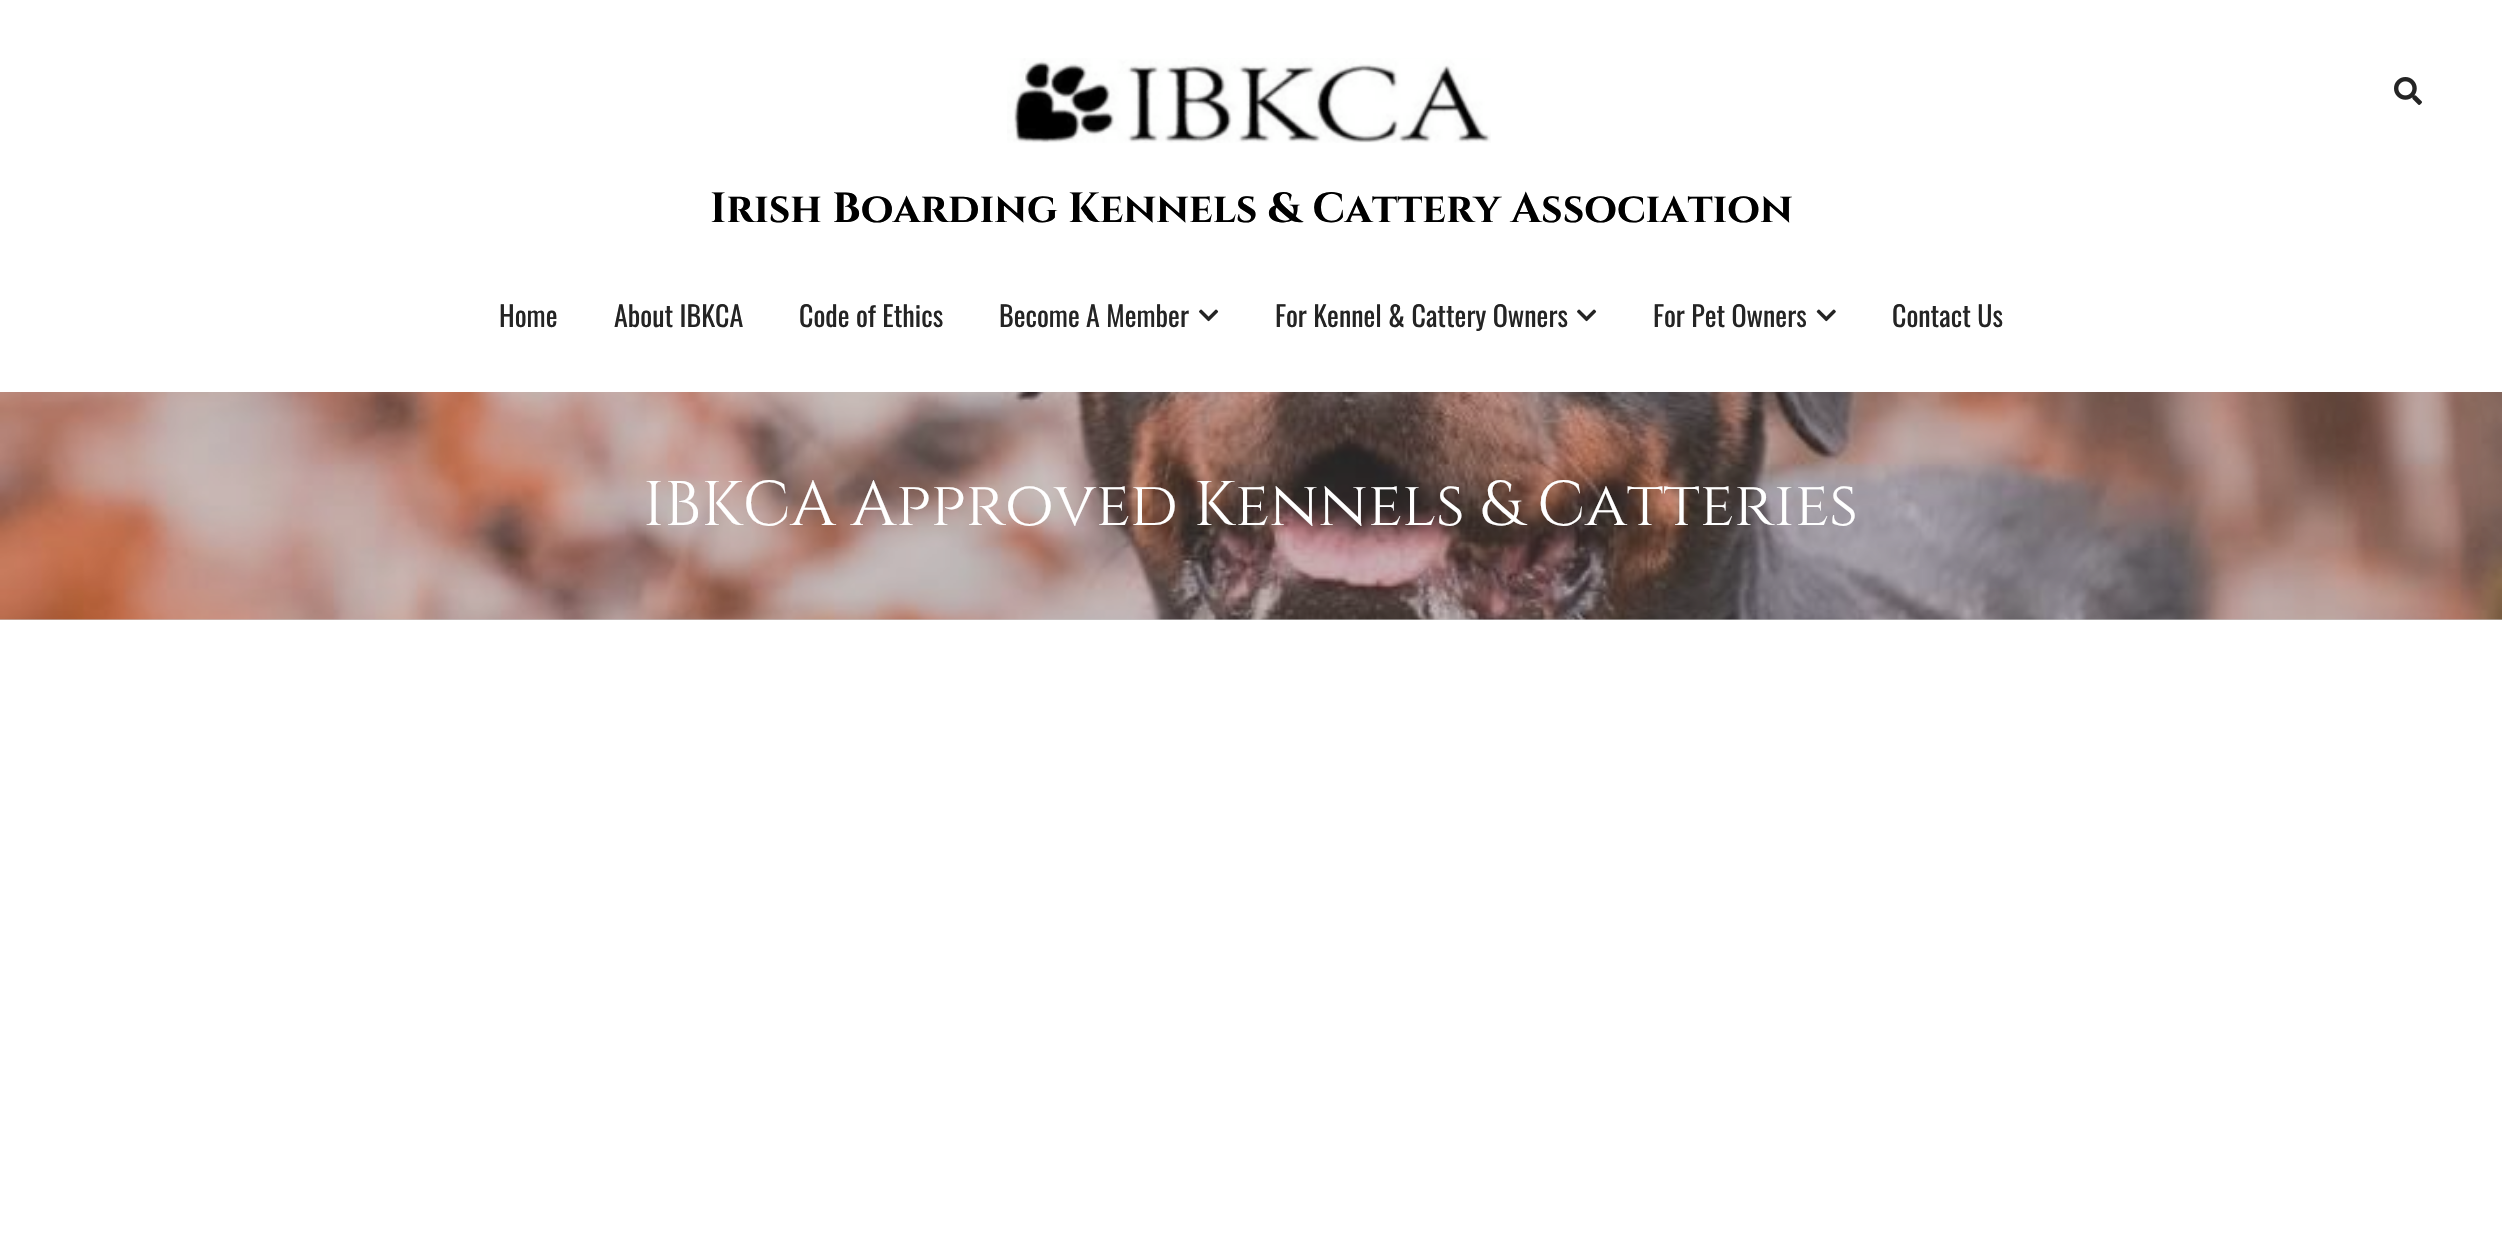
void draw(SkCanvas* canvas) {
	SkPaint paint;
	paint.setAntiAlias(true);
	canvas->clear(0xffffffff);
	paint.setColor(0xffcacaca);
	canvas->drawRect(SkRect::MakeXYWH(0, 619, 2502, 1), paint);
	canvas->drawImageRect(SkImages::DeferredFromEncodedData(SkData::MakeFromFileName("img1.png")), SkRect::MakeXYWH(1007, 58, 484, 85), SkSamplingOptions());
	SkFont f1(fontMgr->matchFamilyStyle("Cinzel", SkFontStyle::Bold()), 42);
	f1.setSubpixel(true);
	paint.setColor(0xff000000);
	canvas->drawString("Irish Boarding Kennels & Cattery Association", 710, 222, f1, paint);
	canvas->drawImageRect(SkImages::DeferredFromEncodedData(SkData::MakeFromFileName("img2.png")), SkRect::MakeXYWH(2394, 77, 28, 28), SkSamplingOptions());
	SkFont f2(fontMgr->matchFamilyStyle("Oswald", SkFontStyle::Normal()), 28);
	f2.setSubpixel(true);
	paint.setColor(0xff242424);
	canvas->drawString("Home", 499, 327, f2, paint);
	canvas->drawString("About IBKCA", 614, 327, f2, paint);
	canvas->drawString("Code of Ethics", 799, 327, f2, paint);
	canvas->drawString("Become A Member", 999, 327, f2, paint);
	canvas->drawImageRect(SkImages::DeferredFromEncodedData(SkData::MakeFromFileName("img3.png")), SkRect::MakeXYWH(1199, 309, 20, 13), SkSamplingOptions());
	canvas->drawString("For Kennel & Cattery Owners", 1275, 327, f2, paint);
	canvas->drawImageRect(SkImages::DeferredFromEncodedData(SkData::MakeFromFileName("img3.png")), SkRect::MakeXYWH(1577, 309, 20, 13), SkSamplingOptions());
	canvas->drawString("For Pet Owners", 1653, 327, f2, paint);
	canvas->drawImageRect(SkImages::DeferredFromEncodedData(SkData::MakeFromFileName("img4.png")), SkRect::MakeXYWH(1816, 309, 20, 13), SkSamplingOptions());
	canvas->drawString("Contact Us", 1892, 327, f2, paint);
	canvas->drawImageRect(SkImages::DeferredFromEncodedData(SkData::MakeFromFileName("img5.png")), SkRect::MakeXYWH(0, 392, 2502, 228), SkSamplingOptions());
	SkFont f3(fontMgr->matchFamilyStyle("Cinzel", SkFontStyle::Normal()), 63);
	f3.setSubpixel(true);
	paint.setColor(0xffffffff);
	canvas->drawString("IBKCA Approved Kennels & Catteries", 643, 525, f3, paint);
}
